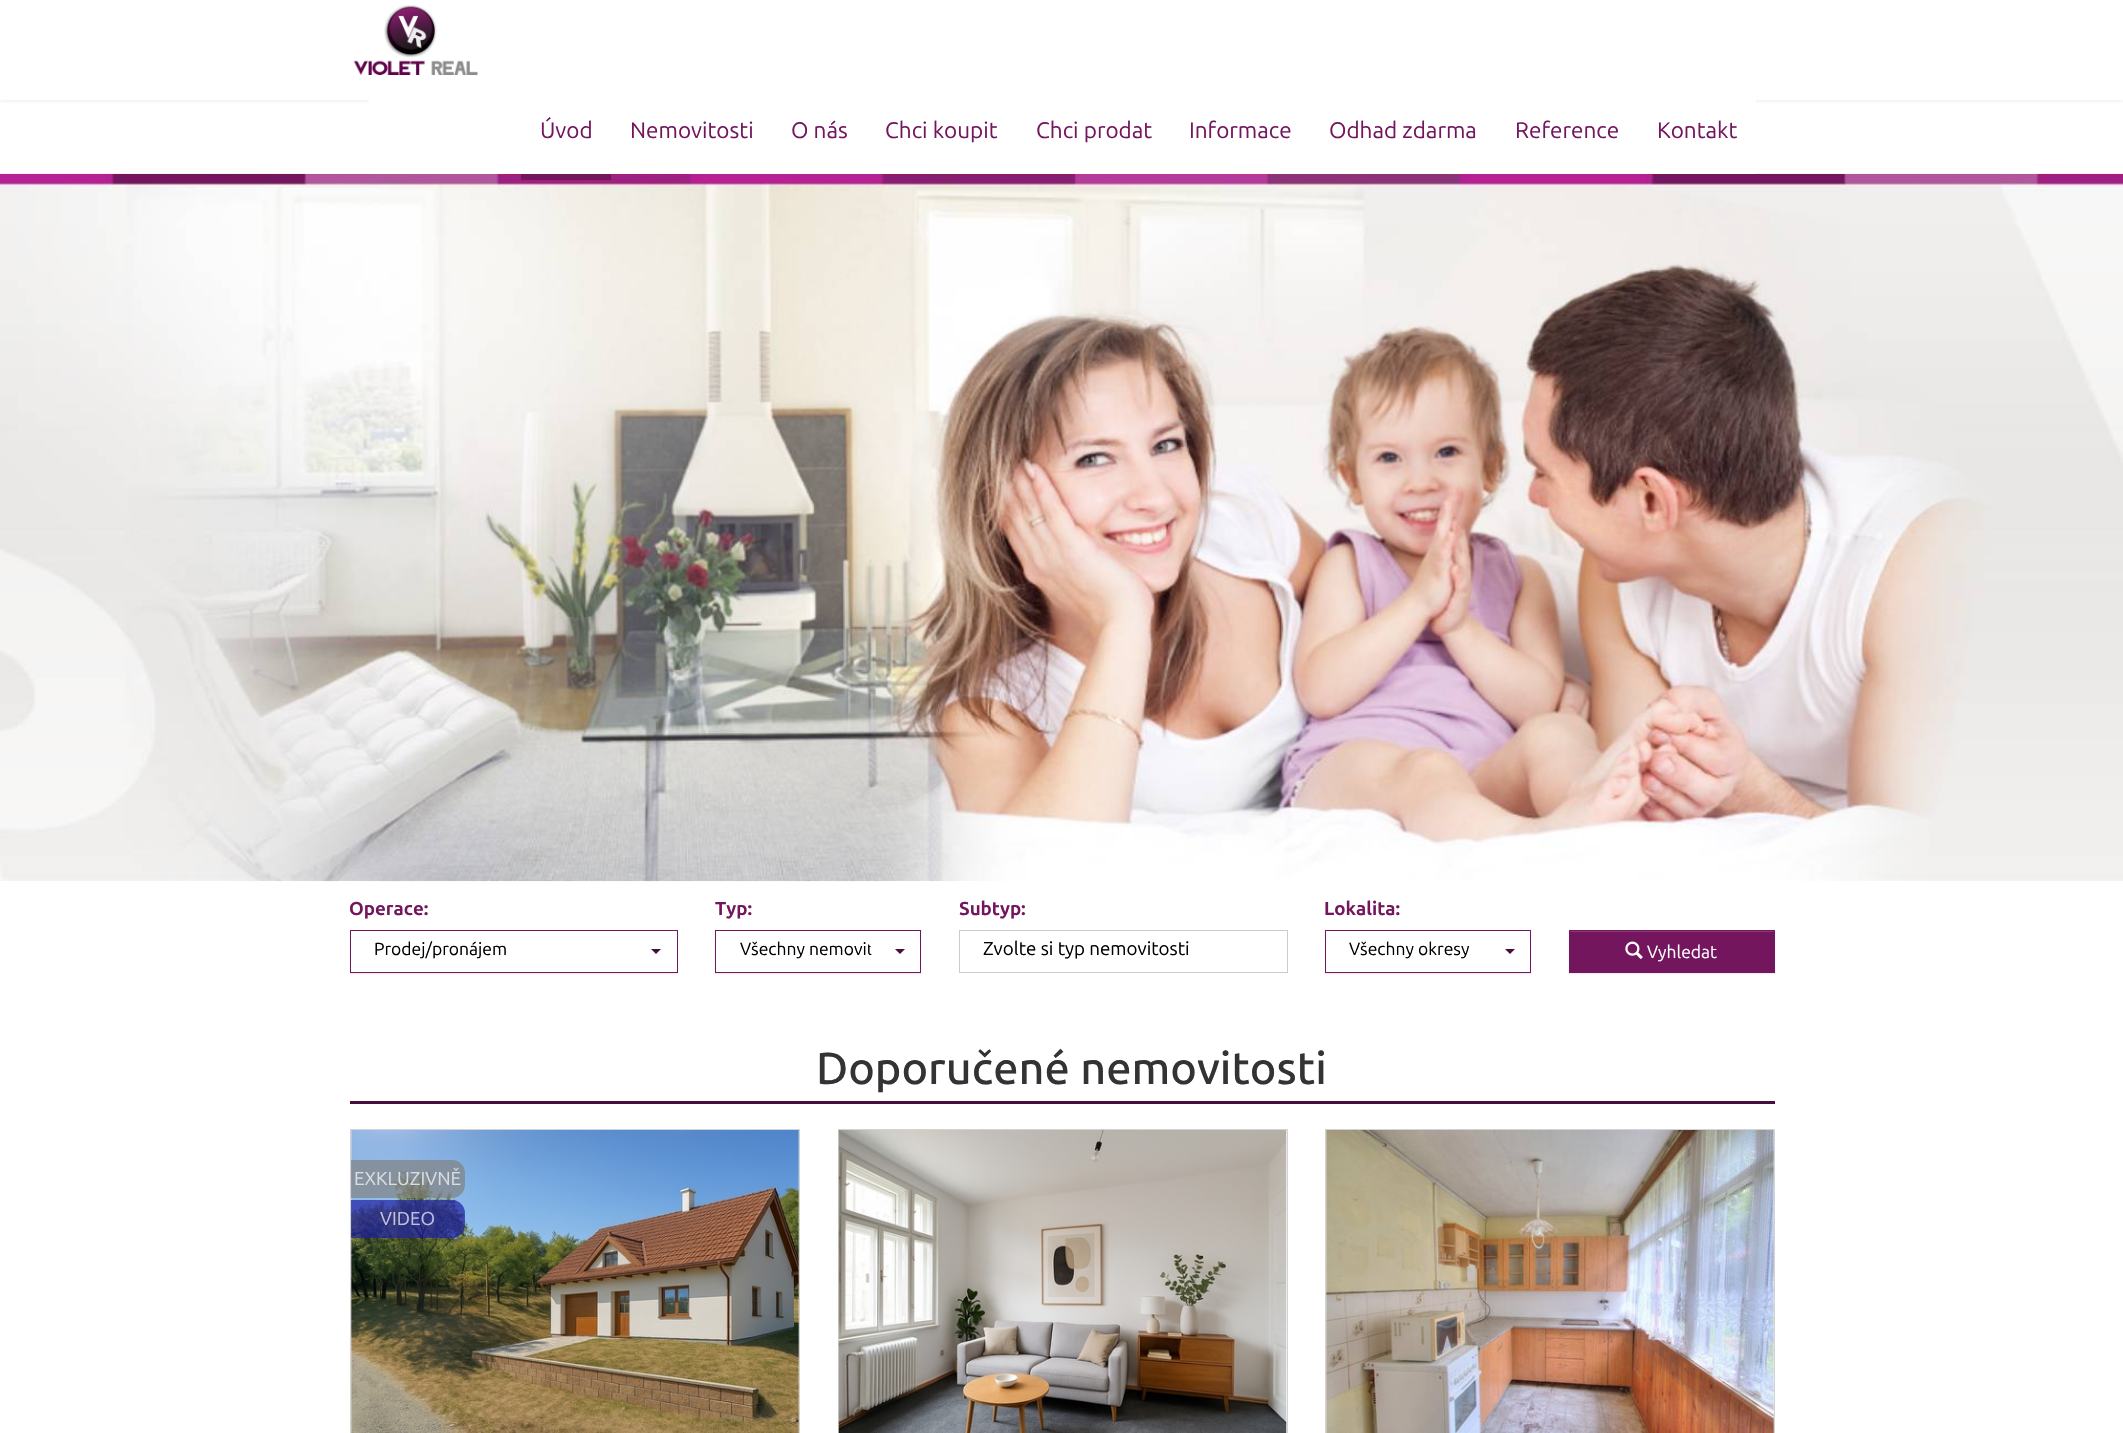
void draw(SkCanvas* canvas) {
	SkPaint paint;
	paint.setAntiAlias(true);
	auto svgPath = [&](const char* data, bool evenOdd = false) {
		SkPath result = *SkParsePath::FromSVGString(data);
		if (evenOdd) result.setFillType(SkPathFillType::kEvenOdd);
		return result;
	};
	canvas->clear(0xffffffff);
	canvas->save();
	canvas->clipRect(SkRect::MakeXYWH(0, 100, 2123, 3));
	paint.setColor(0x12000000);
	paint.setMaskFilter(SkMaskFilter::MakeBlur(kNormal_SkBlurStyle, 3));
	canvas->drawRect(SkRect::MakeXYWH(0, 1, 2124, 100), paint);
	paint.setMaskFilter(nullptr);
	canvas->restore();
	canvas->drawImageRect(SkImages::DeferredFromEncodedData(SkData::MakeFromFileName("img1.png")), SkRect::MakeXYWH(353, 5, 125, 70), SkSamplingOptions());
	canvas->drawImageRect(SkImages::DeferredFromEncodedData(SkData::MakeFromFileName("img2.png")), SkRect::MakeXYWH(0, 173, 2123, 709), SkSamplingOptions());
	paint.setColor(0xffffffff);
	canvas->drawRect(SkRect::MakeXYWH(369, 100, 1387, 74), paint);
	paint.setColor(0xff73165e);
	canvas->drawPath(svgPath("M521 85V180H611V174H521Z"), paint);
	SkFont f1(fontMgr->matchFamilyStyle("Ubuntu", SkFontStyle::Normal()), 22.5);
	f1.setSubpixel(true);
	canvas->drawString("Úvod", 540, 138, f1, paint);
	canvas->drawString("Nemovitosti", 630, 138, f1, paint);
	canvas->drawString("O nás", 791, 138, f1, paint);
	canvas->drawString("Chci koupit", 885, 138, f1, paint);
	canvas->drawString("Chci prodat", 1036, 138, f1, paint);
	canvas->drawString("Informace", 1189, 138, f1, paint);
	canvas->drawString("Odhad zdarma", 1329, 138, f1, paint);
	canvas->drawString("Reference", 1515, 138, f1, paint);
	canvas->drawString("Kontakt", 1657, 138, f1, paint);
	SkFont f2(fontMgr->matchFamilyStyle("Ubuntu", SkFontStyle::Bold()), 18.75);
	f2.setSubpixel(true);
	canvas->drawString("Operace:", 349, 915, f2, paint);
	paint.setColor(0x12000000);
	paint.setMaskFilter(SkMaskFilter::MakeBlur(kNormal_SkBlurStyle, 0.5));
	canvas->drawRect(SkRect::MakeXYWH(350, 931, 328, 43), paint);
	paint.setMaskFilter(nullptr);
	paint.setColor(0xffffffff);
	canvas->drawRect(SkRect::MakeXYWH(350.5, 930.5, 327, 42), paint);
	paint.setStroke(true);
	paint.setStrokeWidth(1);
	paint.setColor(0xff73165e);
	canvas->drawRect(SkRect::MakeXYWH(350.5, 930.5, 327, 42), paint);
	SkFont f3(fontMgr->matchFamilyStyle("Ubuntu", SkFontStyle::Normal()), 17.5);
	f3.setSubpixel(true);
	paint.setStroke(false);
	paint.setColor(0xff000000);
	canvas->drawString("Prodej/pronájem", 374, 955, f3, paint);
	paint.setColor(0xff480e3b);
	canvas->drawPath(svgPath("M651 949H661L656 954Z"), paint);
	paint.setColor(0xff73165e);
	canvas->drawString("Typ:", 715, 915, f2, paint);
	paint.setColor(0x12000000);
	paint.setMaskFilter(SkMaskFilter::MakeBlur(kNormal_SkBlurStyle, 0.5));
	canvas->drawRect(SkRect::MakeXYWH(715, 931, 206, 43), paint);
	paint.setMaskFilter(nullptr);
	paint.setColor(0xffffffff);
	canvas->drawRect(SkRect::MakeXYWH(715.5, 930.5, 205, 42), paint);
	paint.setStroke(true);
	paint.setColor(0xff73165e);
	canvas->drawRect(SkRect::MakeXYWH(715.5, 930.5, 205, 42), paint);
	canvas->save();
	canvas->clipPath(svgPath("M794 930C837 930 872.5 939.5 872.5 951C872.5 963 837 972.5 794 972.5C750.5 972.5 715 963 715 951C715 939.5 750.5 930 794 930Z"), true);
	paint.setStroke(false);
	paint.setColor(0xff000000);
	canvas->drawString("Všechny nemovit", 740, 955, f3, paint);
	canvas->restore();
	paint.setColor(0xff480e3b);
	canvas->drawPath(svgPath("M895 949H905L900 954Z"), paint);
	paint.setColor(0xff73165e);
	canvas->drawString("Subtyp:", 959, 915, f2, paint);
	paint.setStroke(true);
	paint.setColor(0xffcccccc);
	canvas->drawRect(SkRect::MakeXYWH(959.5, 930.5, 328, 42), paint);
	SkFont f4(fontMgr->matchFamilyStyle("Ubuntu", SkFontStyle::Normal()), 18.75);
	f4.setSubpixel(true);
	paint.setStroke(false);
	paint.setColor(0xff000000);
	canvas->drawString("Zvolte si typ nemovitosti", 983, 955, f4, paint);
	paint.setColor(0xff73165e);
	canvas->drawString("Lokalita:", 1324, 915, f2, paint);
	paint.setColor(0x12000000);
	paint.setMaskFilter(SkMaskFilter::MakeBlur(kNormal_SkBlurStyle, 0.5));
	canvas->drawRect(SkRect::MakeXYWH(1325, 931, 206, 43), paint);
	paint.setMaskFilter(nullptr);
	paint.setColor(0xffffffff);
	canvas->drawRect(SkRect::MakeXYWH(1325.5, 930.5, 205, 42), paint);
	paint.setStroke(true);
	paint.setColor(0xff73165e);
	canvas->drawRect(SkRect::MakeXYWH(1325.5, 930.5, 205, 42), paint);
	paint.setStroke(false);
	paint.setColor(0xff000000);
	canvas->drawString("Všechny okresy", 1349, 955, f3, paint);
	paint.setColor(0xff480e3b);
	canvas->drawPath(svgPath("M1505 949H1515L1510 954Z"), paint);
	paint.setColor(0x12000000);
	paint.setMaskFilter(SkMaskFilter::MakeBlur(kNormal_SkBlurStyle, 0.5));
	canvas->drawRect(SkRect::MakeXYWH(1569, 931, 206, 43), paint);
	paint.setMaskFilter(nullptr);
	paint.setColor(0xff73165e);
	canvas->drawRect(SkRect::MakeXYWH(1569, 930, 206, 43), paint);
	paint.setColor(0xff883976);
	canvas->drawRect(SkRect::MakeXYWH(1570, 931, 204, 1), paint);
	canvas->drawImageRect(SkImages::DeferredFromEncodedData(SkData::MakeFromFileName("img3.png")), SkRect::MakeXYWH(1625, 941, 18, 18), SkSamplingOptions());
	paint.setColor(0xffffffff);
	canvas->drawString("Vyhledat", 1647, 958, f3, paint);
	paint.setColor(0xff480e3b);
	canvas->drawRect(SkRect::MakeXYWH(350, 1101, 1425, 3), paint);
	SkFont f5(fontMgr->matchFamilyStyle("Ubuntu", SkFontStyle(500, SkFontStyle::kNormal_Width, SkFontStyle::kUpright_Slant)), 45);
	f5.setSubpixel(true);
	paint.setColor(0xff333333);
	canvas->drawString("Doporučené nemovitosti", 816, 1084, f5, paint);
	paint.setStroke(true);
	paint.setColor(0xffd3d3d3);
	canvas->drawRect(SkRect::MakeXYWH(350.5, 1129.5, 449, 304), paint);
	canvas->drawImageRect(SkImages::DeferredFromEncodedData(SkData::MakeFromFileName("img4.png")), SkRect::MakeXYWH(351, 1130, 448, 303), SkSamplingOptions());
	paint.setStroke(false);
	paint.setColor(0xb3808080);
	canvas->drawPath(svgPath("M351 1160H452C459 1160 465 1166 465 1173V1185C465 1192 459 1198 452 1198H351Z"), paint);
	paint.setColor(0xffdadde1);
	canvas->drawString("EXKLUZIVNĚ", 354, 1185, f4, paint);
	paint.setColor(0xb31c1ea2);
	canvas->drawPath(svgPath("M351 1200H452C459 1200 465 1206 465 1213V1225C465 1232 459 1238 452 1238H351Z"), paint);
	paint.setColor(0xffc1c2da);
	canvas->drawString("VIDEO", 380, 1225, f4, paint);
	paint.setColor(0xfff7f7f7);
	canvas->drawRect(SkRect::MakeXYWH(1286, 1130, 1, 303), paint);
	paint.setStroke(true);
	paint.setColor(0xffd3d3d3);
	canvas->drawRect(SkRect::MakeXYWH(838.5, 1129.5, 449, 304), paint);
	canvas->drawImageRect(SkImages::DeferredFromEncodedData(SkData::MakeFromFileName("img5.png")), SkRect::MakeXYWH(838, 1130, 449, 303), SkSamplingOptions());
	canvas->drawRect(SkRect::MakeXYWH(1325.5, 1129.5, 449, 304), paint);
	canvas->drawImageRect(SkImages::DeferredFromEncodedData(SkData::MakeFromFileName("img6.png")), SkRect::MakeXYWH(1326, 1130, 448, 303), SkSamplingOptions());
}
